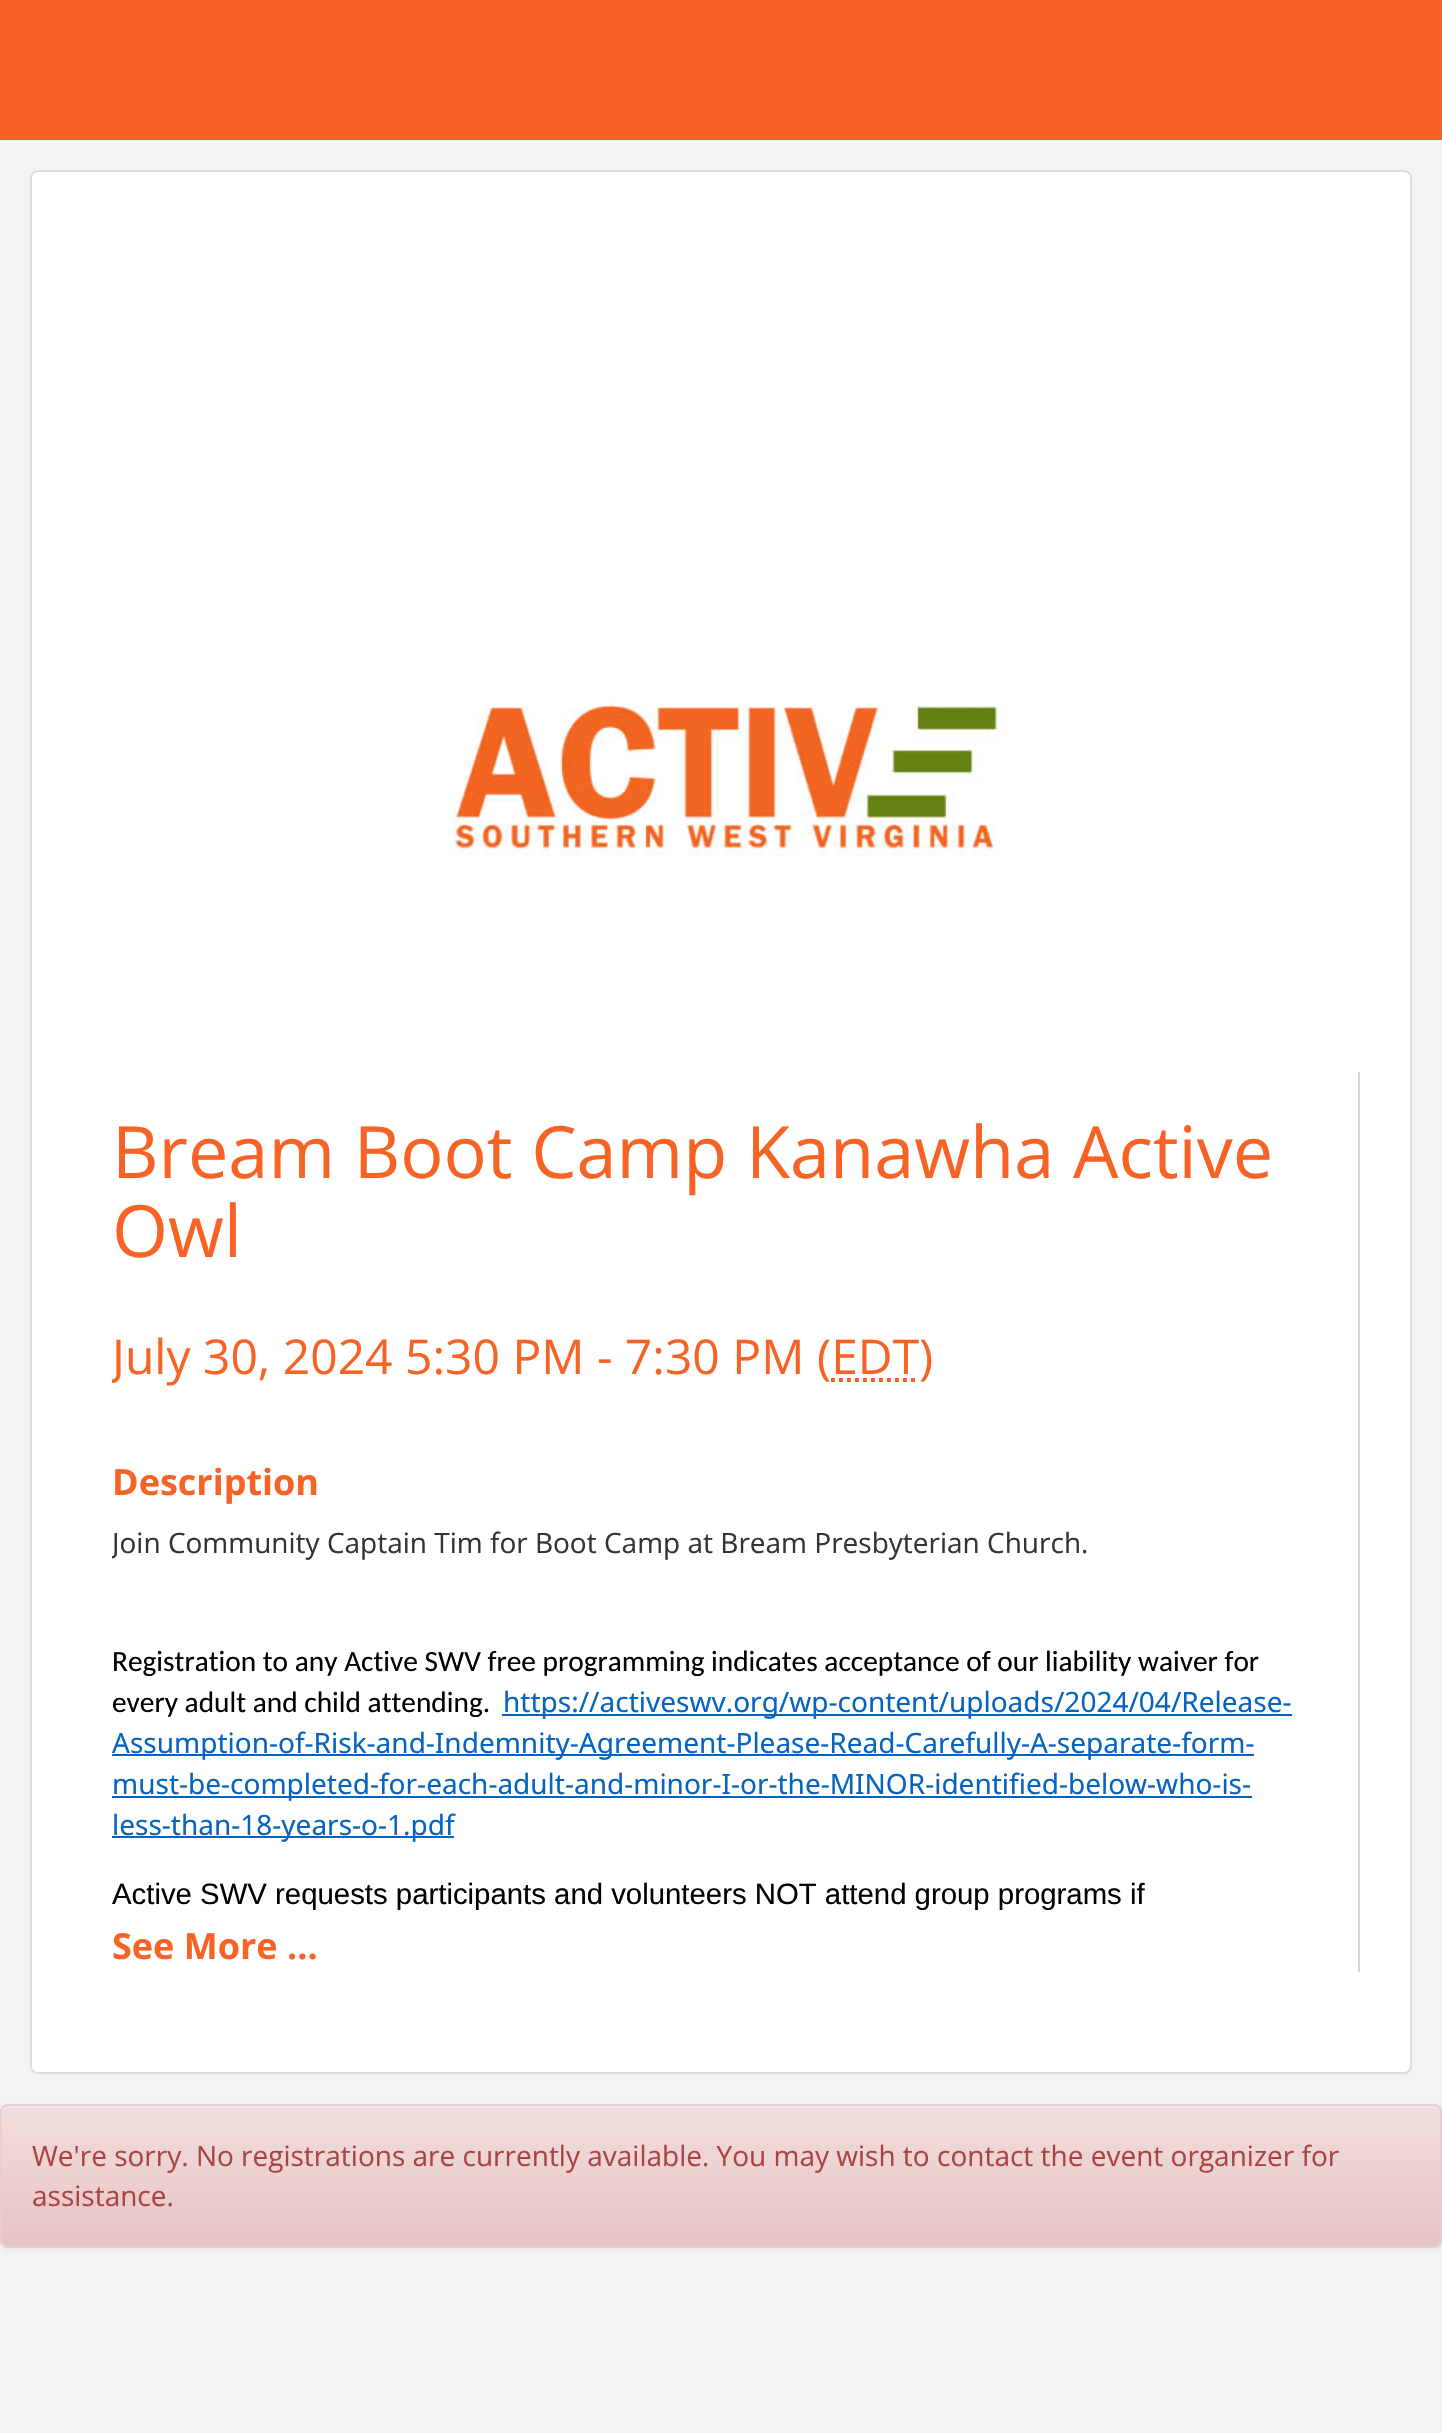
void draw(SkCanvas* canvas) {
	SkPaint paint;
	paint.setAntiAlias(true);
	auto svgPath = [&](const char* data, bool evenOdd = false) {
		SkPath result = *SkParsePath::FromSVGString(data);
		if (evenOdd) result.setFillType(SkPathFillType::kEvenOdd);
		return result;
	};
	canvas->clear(0xfff3f3f3);
	paint.setColor(0xfff76325);
	canvas->drawRect(SkRect::MakeXYWH(0, 0, 1442, 140), paint);
	paint.setColor(0xffffffff);
	canvas->drawRoundRect(SkRect::MakeXYWH(31, 171, 1380, 1902), 7, 7, paint);
	paint.setStroke(true);
	paint.setStrokeWidth(2);
	paint.setColor(0xffdddddd);
	canvas->drawRoundRect(SkRect::MakeXYWH(31, 171, 1380, 1902), 7, 7, paint);
	canvas->drawImageRect(SkImages::DeferredFromEncodedData(SkData::MakeFromFileName("img1.png")), SkRect::MakeXYWH(454, 703, 544, 153), SkSamplingOptions());
	paint.setStroke(false);
	paint.setColor(0xffd4d4d4);
	canvas->drawRect(SkRect::MakeXYWH(1358, 1072, 2, 900), paint);
	SkFont f1(fontMgr->matchFamilyStyle("Open Sans", SkFontStyle::Normal()), 72);
	f1.setSubpixel(true);
	paint.setColor(0xfff76325);
	canvas->drawString("Bream Boot Camp Kanawha Active", 112, 1178, f1, paint);
	canvas->drawString("Owl", 112, 1257, f1, paint);
	canvas->save();
	canvas->clipRect(SkRect::MakeXYWH(112, 1072, 1186, 850));
	SkFont f2(fontMgr->matchFamilyStyle("Open Sans", SkFontStyle::Normal()), 48);
	f2.setSubpixel(true);
	canvas->drawString("July 30, 2024 5:30 PM - 7:30 PM", 112, 1374, f2, paint);
	canvas->restore();
	canvas->drawString("(EDT)", 817, 1374, f2, paint);
	paint.setStroke(true);
	paint.setStrokeWidth(4);
	paint.setPathEffect(SkDashPathEffect::Make({{4, 4}}, 0));
	canvas->drawPath(svgPath("M831 1380H919"), paint);
	paint.setPathEffect(nullptr);
	SkFont f3(fontMgr->matchFamilyStyle("Open Sans", SkFontStyle::Bold()), 36);
	f3.setSubpixel(true);
	paint.setStroke(false);
	canvas->drawString("Description", 112, 1495, f3, paint);
	canvas->save();
	canvas->clipRect(SkRect::MakeXYWH(112, 1072, 1186, 850));
	SkFont f4(fontMgr->matchFamilyStyle("Open Sans", SkFontStyle::Normal()), 28);
	f4.setSubpixel(true);
	paint.setColor(0xff333333);
	canvas->drawString("Join Community Captain Tim for Boot Camp at Bream Presbyterian Church.", 112, 1553, f4, paint);
	canvas->restore();
	SkFont f5(fontMgr->matchFamilyStyle("Carlito", SkFontStyle::Normal()), 29.35);
	f5.setSubpixel(true);
	paint.setColor(0xff000000);
	canvas->drawString("Registration to any Active SWV free programming", 112, 1671, f5, paint);
	canvas->drawString("indicates acceptance of our liability waiver for", 711, 1671, f5, paint);
	canvas->drawString("every adult and child attending.", 112, 1712, f5, paint);
	paint.setColor(0xff0563c1);
	canvas->drawRect(SkRect::MakeXYWH(502, 1714, 790, 2), paint);
	SkFont f6(fontMgr->matchFamilyStyle("Noto Sans", SkFontStyle::Normal()), 28);
	f6.setSubpixel(true);
	canvas->drawString("https://activeswv.org/wp-content/uploads/2024/04/Release-", 503, 1712, f6, paint);
	canvas->drawRect(SkRect::MakeXYWH(112, 1754, 1142, 2), paint);
	canvas->drawString("Assumption-of-Risk-and-Indemnity-Agreement-Please-Read-Carefully-A-separate-form-", 112, 1753, f6, paint);
	canvas->drawRect(SkRect::MakeXYWH(112, 1796, 1140, 2), paint);
	canvas->drawString("must-be-completed-for-each-adult-and-minor-I-or-the-MINOR-identified-below-who-is-", 112, 1794, f6, paint);
	canvas->drawRect(SkRect::MakeXYWH(112, 1836, 342, 2), paint);
	canvas->drawString("less-than-18-years-o-1.pdf", 112, 1835, f6, paint);
	SkFont f7(fontMgr->matchFamilyStyle("Liberation Sans", SkFontStyle::Normal()), 29.35);
	f7.setSubpixel(true);
	paint.setColor(0xff000000);
	canvas->drawString("Active SWV requests participants and volunteers NOT attend group programs if", 112, 1904, f7, paint);
	paint.setColor(0xfff76325);
	canvas->drawString("See More ...", 112, 1959, f3, paint);
	paint.setColor(0x0d000000);
	paint.setMaskFilter(SkMaskFilter::MakeBlur(kNormal_SkBlurStyle, 2));
	canvas->drawRoundRect(SkRect::MakeXYWH(0, 2106, 1442, 144), 8, 8, paint);
	paint.setMaskFilter(nullptr);
	canvas->save();
	canvas->clipPath(svgPath("M8 2104H1434C1438.5 2104 1442 2107.5 1442 2112V2240C1442 2244.5 1438.5 2248 1434 2248H8C3.5 2248 0 2244.5 0 2240V2112C0 2107.5 3.5 2104 8 2104Z"), true);
	{
		const SkColor colors[] = {0xfff2dede, 0xffe7c3c3};
		const float stops[] = {0, 1};
		const SkPoint ends[] = {{721, 2106}, {721, 2246}};
		paint.setShader(SkGradientShader::MakeLinear(ends, colors, stops, 2, SkTileMode::kClamp));
		paint.setAlpha(255);
	}
	canvas->drawRect(SkRect::MakeXYWH(0, 2106, 1442, 140), paint);
	canvas->restore();
	paint.setShader(nullptr);
	paint.setColor(0xfff5e6e6);
	canvas->drawPath(svgPath("M8 2108H1434C1437 2108 1440 2111 1440 2114C1440 2110 1439 2106 1434 2106H8C3 2106 2 2110 2 2114C2 2111 5 2108 8 2108Z"), paint);
	paint.setStroke(true);
	paint.setStrokeWidth(2);
	paint.setColor(0xffebccd1);
	canvas->drawRoundRect(SkRect::MakeXYWH(1, 2105, 1440, 142), 7, 7, paint);
	paint.setStroke(false);
	paint.setColor(0xffa94442);
	canvas->drawString("We're sorry. No registrations are currently available. You may wish to contact the event organizer for", 32, 2166, f4, paint);
	canvas->drawString("assistance.", 32, 2206, f4, paint);
}
